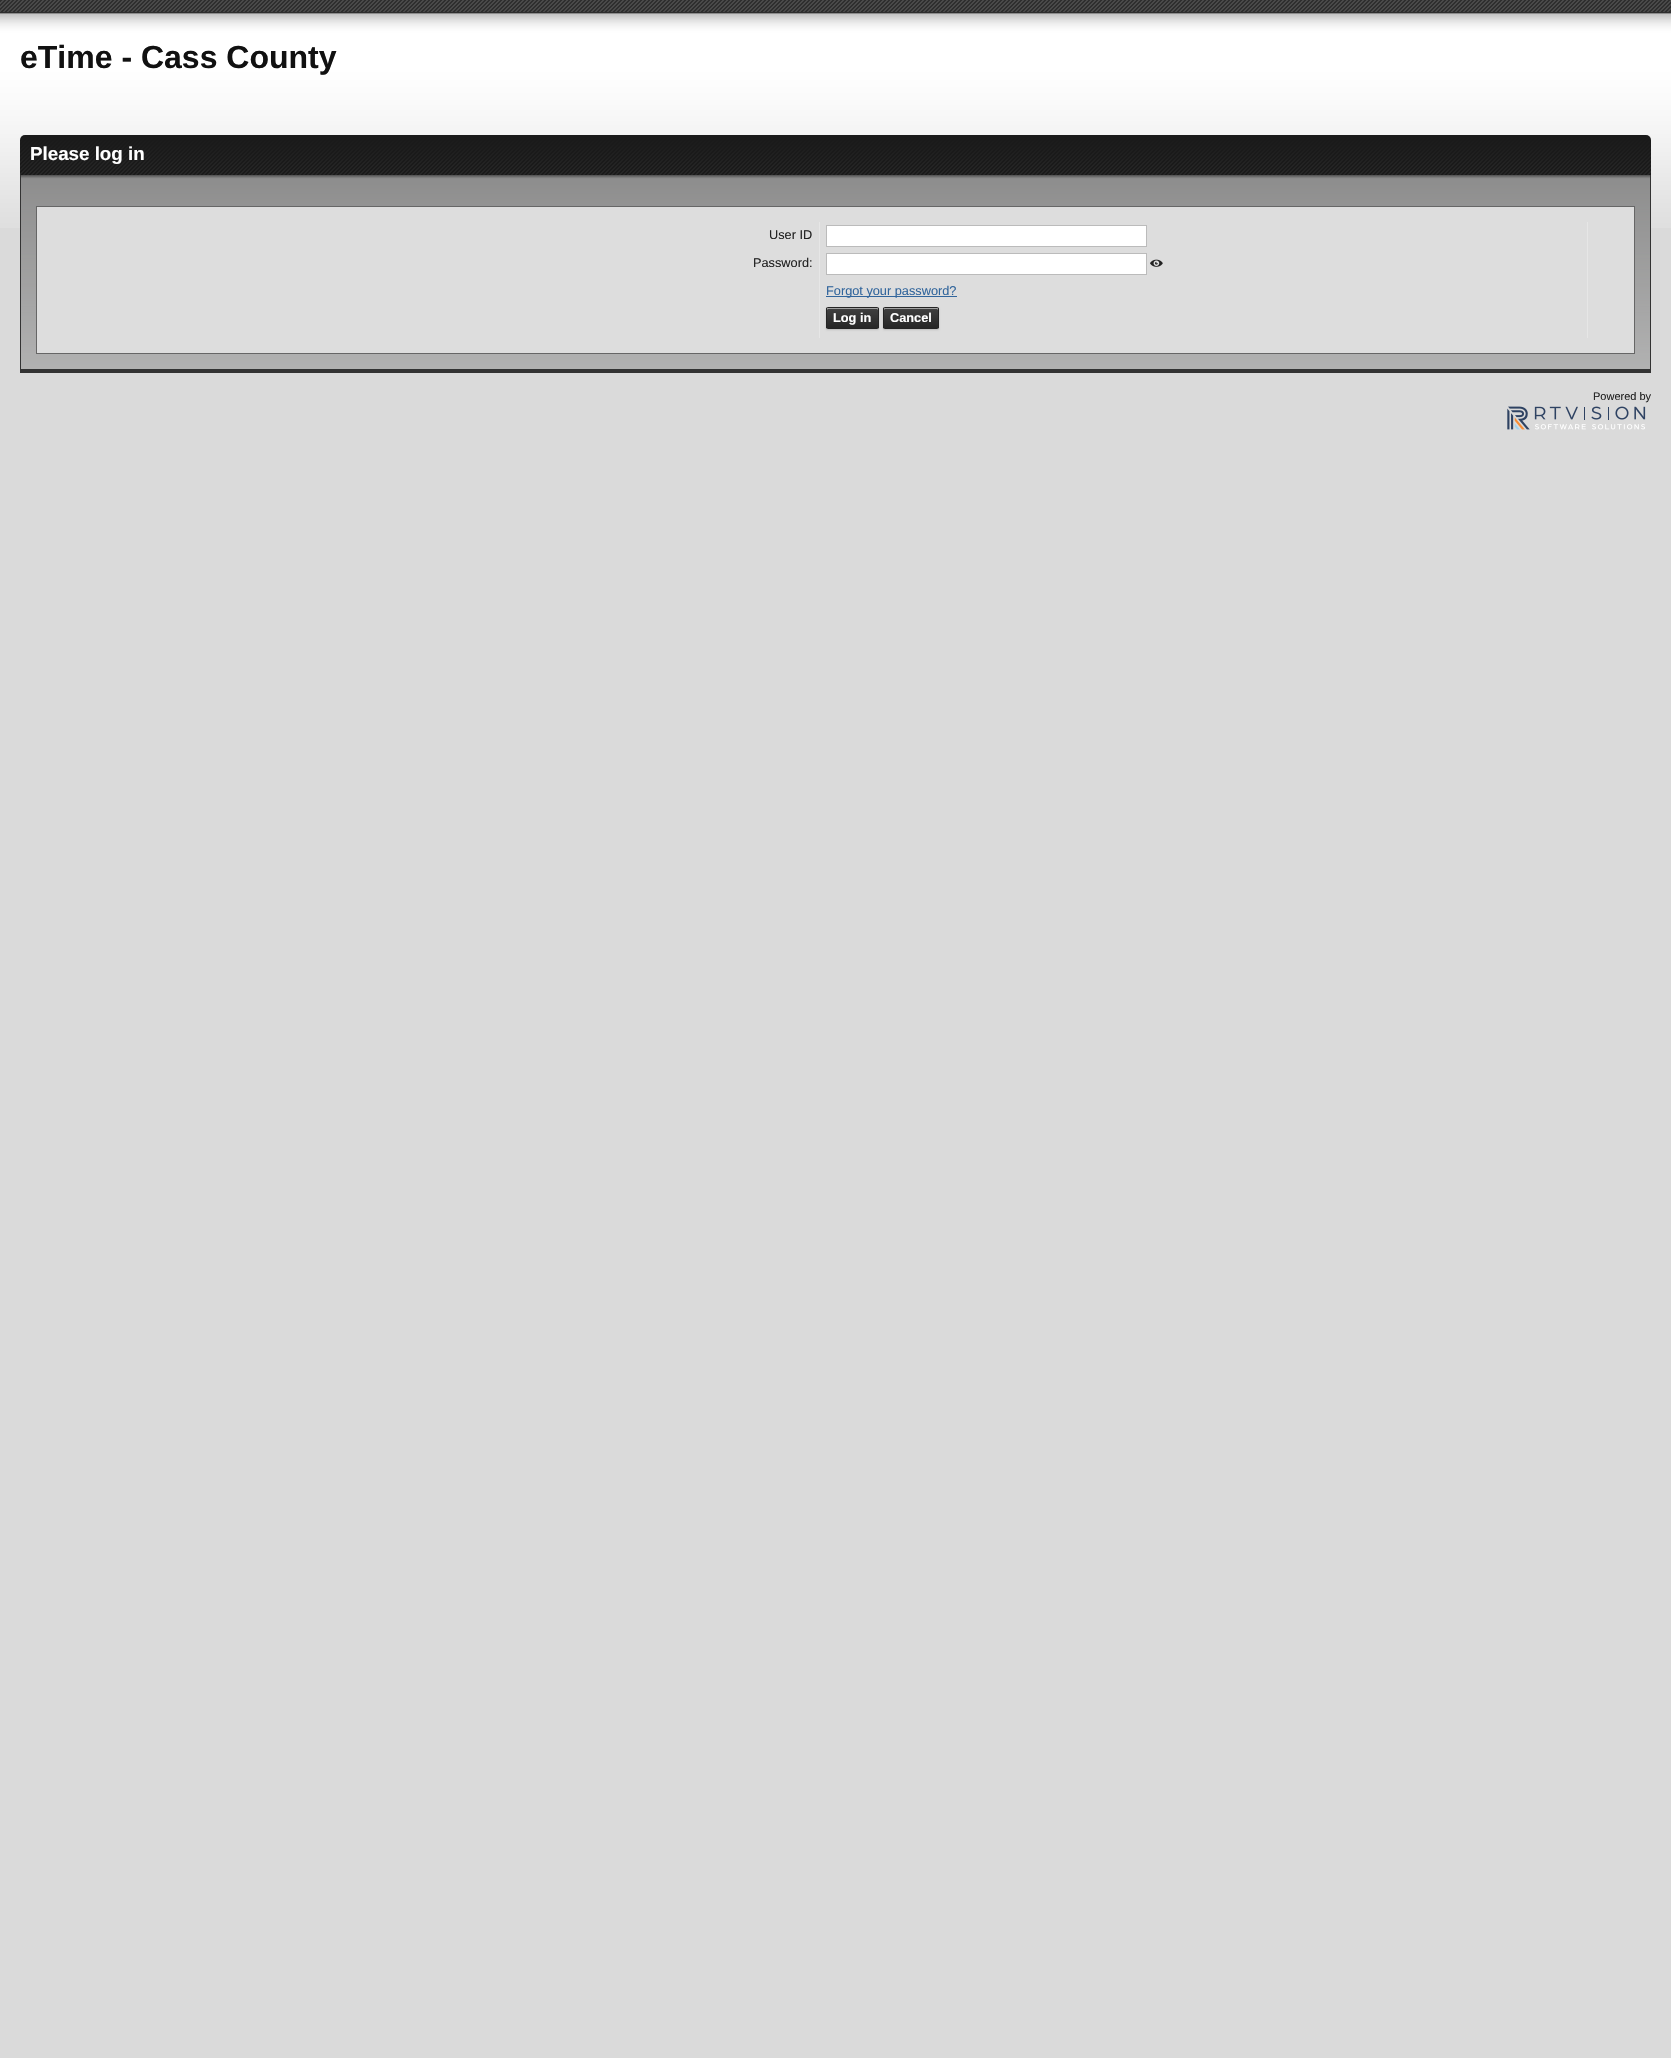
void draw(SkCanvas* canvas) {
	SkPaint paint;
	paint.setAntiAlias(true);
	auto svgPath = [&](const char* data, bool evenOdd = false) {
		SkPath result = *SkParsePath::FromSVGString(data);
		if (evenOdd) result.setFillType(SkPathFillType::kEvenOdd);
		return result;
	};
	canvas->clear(0xffdadada);
	canvas->drawImageRect(SkImages::DeferredFromEncodedData(SkData::MakeFromFileName("img1.png")), SkRect::MakeXYWH(0, 0, 1671, 228), SkSamplingOptions());
	SkFont f1(fontMgr->matchFamilyStyle("Liberation Sans", SkFontStyle::Bold()), 32);
	f1.setSubpixel(true);
	paint.setColor(0xff111111);
	canvas->drawString("eTime - Cass County", 20, 68, f1, paint);
	canvas->drawImageRect(SkImages::DeferredFromEncodedData(SkData::MakeFromFileName("img2.png")), SkRect::MakeXYWH(20, 135, 1631, 40), SkSamplingOptions());
	SkFont f2(fontMgr->matchFamilyStyle("Liberation Sans", SkFontStyle::Bold()), 18.75);
	f2.setSubpixel(true);
	paint.setColor(0xffffffff);
	canvas->drawString("Please log in", 30, 160, f2, paint);
	canvas->drawImageRect(SkImages::DeferredFromEncodedData(SkData::MakeFromFileName("img3.png")), SkRect::MakeXYWH(21, 175, 1629, 194), SkSamplingOptions());
	paint.setColor(0xff333333);
	canvas->drawRect(SkRect::MakeXYWH(1650, 175, 1, 198), paint);
	canvas->drawRect(SkRect::MakeXYWH(20, 369, 1631, 4), paint);
	canvas->drawRect(SkRect::MakeXYWH(20, 175, 1, 198), paint);
	paint.setColor(0xffdddddd);
	canvas->drawRect(SkRect::MakeXYWH(36.5, 206.5, 1598, 147), paint);
	paint.setStroke(true);
	paint.setStrokeWidth(1);
	paint.setColor(0xff666666);
	canvas->drawRect(SkRect::MakeXYWH(36.5, 206.5, 1598, 147), paint);
	paint.setStroke(false);
	paint.setColor(0xffe6e6e6);
	canvas->drawRect(SkRect::MakeXYWH(819, 222, 1, 116), paint);
	SkFont f3(fontMgr->matchFamilyStyle("Liberation Sans", SkFontStyle::Normal()), 12.75);
	f3.setSubpixel(true);
	paint.setColor(0xff222222);
	canvas->drawString("User ID", 769, 239, f3, paint);
	paint.setColor(0xffe6e6e6);
	canvas->drawRect(SkRect::MakeXYWH(1587, 222, 1, 116), paint);
	paint.setColor(0xffffffff);
	canvas->drawRect(SkRect::MakeXYWH(826.5, 225.5, 320, 21), paint);
	paint.setStroke(true);
	paint.setColor(0xffbbbbbb);
	canvas->drawRect(SkRect::MakeXYWH(826.5, 225.5, 320, 21), paint);
	paint.setStroke(false);
	paint.setColor(0xff222222);
	canvas->drawString("Password:", 753, 267, f3, paint);
	paint.setColor(0xffffffff);
	canvas->drawRect(SkRect::MakeXYWH(826.5, 253.5, 320, 21), paint);
	paint.setStroke(true);
	paint.setColor(0xffbbbbbb);
	canvas->drawRect(SkRect::MakeXYWH(826.5, 253.5, 320, 21), paint);
	canvas->drawImageRect(SkImages::DeferredFromEncodedData(SkData::MakeFromFileName("img4.png")), SkRect::MakeXYWH(1150, 259, 13, 8), SkSamplingOptions());
	paint.setStroke(false);
	paint.setColor(0xff31659c);
	canvas->drawRect(SkRect::MakeXYWH(826, 296, 131, 1), paint);
	canvas->drawString("Forgot your password?", 826, 295, f3, paint);
	paint.setColor(0x26000000);
	paint.setMaskFilter(SkMaskFilter::MakeBlur(kNormal_SkBlurStyle, 1));
	canvas->drawRoundRect(SkRect::MakeXYWH(826, 308, 53, 22), 1.5, 1.5, paint);
	paint.setMaskFilter(nullptr);
	{
		const SkColor colors[] = {0xff404040, 0xff262626};
		const float stops[] = {0, 1};
		const SkPoint ends[] = {{853, 308}, {853, 328}};
		paint.setShader(SkGradientShader::MakeLinear(ends, colors, stops, 2, SkTileMode::kClamp));
		paint.setAlpha(255);
	}
	canvas->drawRect(SkRect::MakeXYWH(826, 308, 53, 20), paint);
	paint.setShader(nullptr);
	paint.setColor(0x80ffffff);
	canvas->drawPath(svgPath("M828 309H877L878 310C878 305 876 308 869 308H836C829 308 827 305 827 310Z"), paint);
	paint.setStroke(true);
	paint.setColor(0xff242424);
	canvas->drawRoundRect(SkRect::MakeXYWH(826.5, 307.5, 52, 21), 1, 1, paint);
	SkFont f4(fontMgr->matchFamilyStyle("Liberation Sans", SkFontStyle::Bold()), 12.75);
	f4.setSubpixel(true);
	paint.setStroke(false);
	paint.setColor(0xffffffff);
	canvas->drawString("Log in", 833, 322, f4, paint);
	paint.setColor(0x26000000);
	paint.setMaskFilter(SkMaskFilter::MakeBlur(kNormal_SkBlurStyle, 1));
	canvas->drawRoundRect(SkRect::MakeXYWH(883, 308, 56, 22), 1.5, 1.5, paint);
	paint.setMaskFilter(nullptr);
	{
		const SkColor colors[] = {0xff404040, 0xff262626};
		const float stops[] = {0, 1};
		const SkPoint ends[] = {{911, 308}, {911, 328}};
		paint.setShader(SkGradientShader::MakeLinear(ends, colors, stops, 2, SkTileMode::kClamp));
		paint.setAlpha(255);
	}
	canvas->drawRect(SkRect::MakeXYWH(883, 308, 56, 20), paint);
	paint.setShader(nullptr);
	paint.setColor(0x80ffffff);
	canvas->drawPath(svgPath("M885 309H937L938 310C938 305 936 308 929 308H893C886 308 884 305 884 310Z"), paint);
	paint.setStroke(true);
	paint.setColor(0xff242424);
	canvas->drawRoundRect(SkRect::MakeXYWH(883.5, 307.5, 55, 21), 1, 1, paint);
	paint.setStroke(false);
	paint.setColor(0xffffffff);
	canvas->drawString("Cancel", 890, 322, f4, paint);
	SkFont f5(fontMgr->matchFamilyStyle("Liberation Sans", SkFontStyle::Normal()), 11);
	f5.setSubpixel(true);
	paint.setColor(0xff222222);
	canvas->drawString("Powered by", 1593, 400, f5, paint);
	canvas->drawImageRect(SkImages::DeferredFromEncodedData(SkData::MakeFromFileName("img5.png")), SkRect::MakeXYWH(1507, 406, 139, 24), SkSamplingOptions());
}
